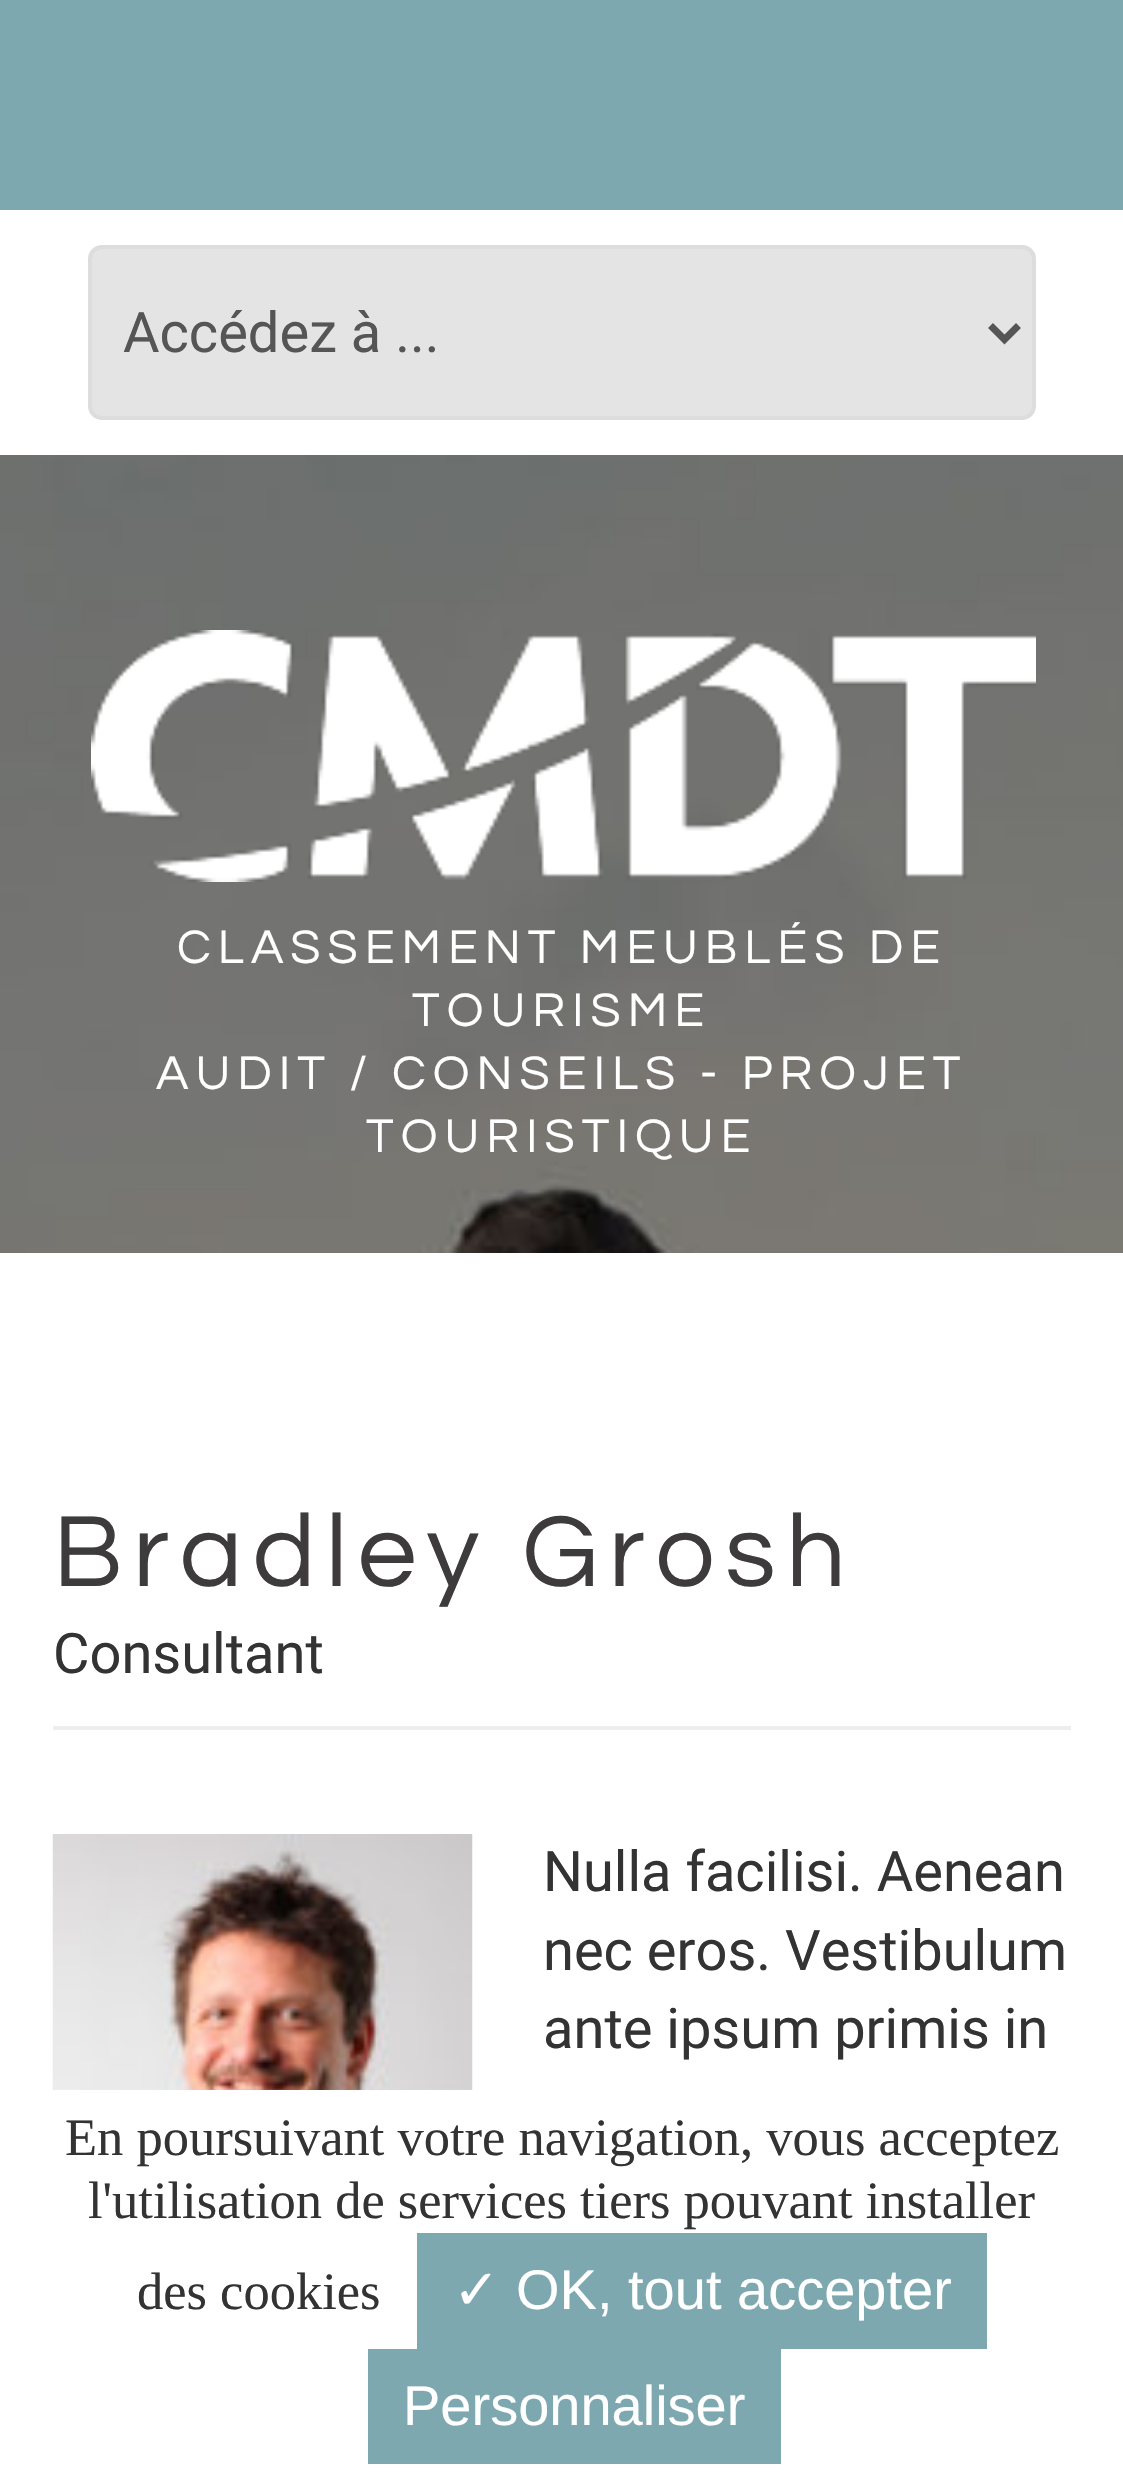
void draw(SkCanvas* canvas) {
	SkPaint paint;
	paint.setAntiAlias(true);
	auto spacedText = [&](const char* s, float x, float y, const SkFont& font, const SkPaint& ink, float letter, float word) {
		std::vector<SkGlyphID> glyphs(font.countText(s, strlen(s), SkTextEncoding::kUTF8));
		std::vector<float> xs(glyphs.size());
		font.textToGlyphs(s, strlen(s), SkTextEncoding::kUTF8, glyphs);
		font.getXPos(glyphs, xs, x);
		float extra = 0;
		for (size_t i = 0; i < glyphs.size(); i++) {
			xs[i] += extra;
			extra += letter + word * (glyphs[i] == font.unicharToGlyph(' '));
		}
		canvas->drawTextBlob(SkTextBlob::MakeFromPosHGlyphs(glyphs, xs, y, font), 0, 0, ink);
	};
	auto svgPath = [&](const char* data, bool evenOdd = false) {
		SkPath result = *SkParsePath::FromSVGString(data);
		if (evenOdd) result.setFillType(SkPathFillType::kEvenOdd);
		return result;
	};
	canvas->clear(0xff7da8b0);
	canvas->drawImageRect(SkImages::DeferredFromEncodedData(SkData::MakeFromFileName("img1.png")), SkRect::MakeXYWH(0, 455, 1123, 798), SkSamplingOptions());
	paint.setColor(0xffffffff);
	canvas->drawRect(SkRect::MakeXYWH(0, 210, 53, 245), paint);
	canvas->drawRect(SkRect::MakeXYWH(53, 210, 1070, 245), paint);
	paint.setColor(0xffe4e4e4);
	canvas->drawRoundRect(SkRect::MakeXYWH(90, 247, 944, 171), 12, 12, paint);
	paint.setStroke(true);
	paint.setStrokeWidth(4);
	paint.setColor(0xffdddddd);
	canvas->drawRoundRect(SkRect::MakeXYWH(90, 247, 944, 171), 12, 12, paint);
	paint.setStrokeWidth(7);
	paint.setColor(0xff555555);
	canvas->drawPath(svgPath("M990.5 325.5L1004.5 339.5L1018.5 325.5"), paint);
	SkFont f1(fontMgr->matchFamilyStyle("Roboto", SkFontStyle::Normal()), 56);
	f1.setSubpixel(true);
	paint.setStroke(false);
	canvas->drawString("Accédez à ...", 123, 352, f1, paint);
	canvas->drawImageRect(SkImages::DeferredFromEncodedData(SkData::MakeFromFileName("img2.png")), SkRect::MakeXYWH(91, 630, 945, 252), SkSamplingOptions());
	SkFont f2(fontMgr->matchFamilyStyle("Questrial", SkFontStyle::Normal()), 49);
	f2.setSubpixel(true);
	paint.setColor(0xffffffff);
	spacedText("CLASSEMENT MEUBLÉS DE", 177, 963, f2, paint, 7, 0);
	spacedText("TOURISME", 412, 1026, f2, paint, 7, 0);
	spacedText("AUDIT / CONSEILS - PROJET", 156, 1089, f2, paint, 7, 0);
	spacedText("TOURISTIQUE", 366, 1152, f2, paint, 7, 0);
	canvas->drawRect(SkRect::MakeXYWH(0, 1253, 1123, 1228), paint);
	paint.setColor(0xffeeeeee);
	canvas->drawRect(SkRect::MakeXYWH(53, 1726, 1018, 4), paint);
	SkFont f3(fontMgr->matchFamilyStyle("Questrial", SkFontStyle::Normal()), 105);
	f3.setSubpixel(true);
	paint.setColor(0xff3e3b3d);
	spacedText("Bradley Grosh", 53, 1586, f3, paint, 10.5, 0);
	paint.setColor(0xff333333);
	canvas->drawString("Consultant", 53, 1673, f1, paint);
	canvas->drawImageRect(SkImages::DeferredFromEncodedData(SkData::MakeFromFileName("img3.png")), SkRect::MakeXYWH(52, 1834, 421, 256), SkSamplingOptions());
	canvas->drawString("Nulla facilisi. Aenean", 543, 1891, f1, paint);
	canvas->drawString("nec eros. Vestibulum", 543, 1970, f1, paint);
	canvas->drawString("ante ipsum primis in", 543, 2048, f1, paint);
	SkFont f4(fontMgr->matchFamilyStyle("Liberation Serif", SkFontStyle::Normal()), 52.5);
	f4.setSubpixel(true);
	canvas->drawString("En poursuivant votre navigation, vous acceptez", 65, 2155, f4, paint);
	canvas->drawString("l'utilisation de services tiers pouvant installer", 88, 2218, f4, paint);
	canvas->drawString("des cookies", 137, 2309, f4, paint);
	paint.setColor(0xff7da8b0);
	canvas->drawRect(SkRect::MakeXYWH(417, 2233, 570, 116), paint);
	SkFont f5(fontMgr->matchFamilyStyle("DejaVu Sans", SkFontStyle::Normal()), 56);
	f5.setSubpixel(true);
	paint.setColor(0xffffffff);
	canvas->drawString("✓", 453, 2309, f5, paint);
	SkFont f6(fontMgr->matchFamilyStyle("Liberation Sans", SkFontStyle::Normal()), 56);
	f6.setSubpixel(true);
	canvas->drawString("OK, tout accepter", 516, 2309, f6, paint);
	paint.setColor(0xff7da8b0);
	canvas->drawRect(SkRect::MakeXYWH(368, 2349, 413, 115), paint);
	paint.setColor(0xffffffff);
	canvas->drawString("Personnaliser", 403, 2425, f6, paint);
}
